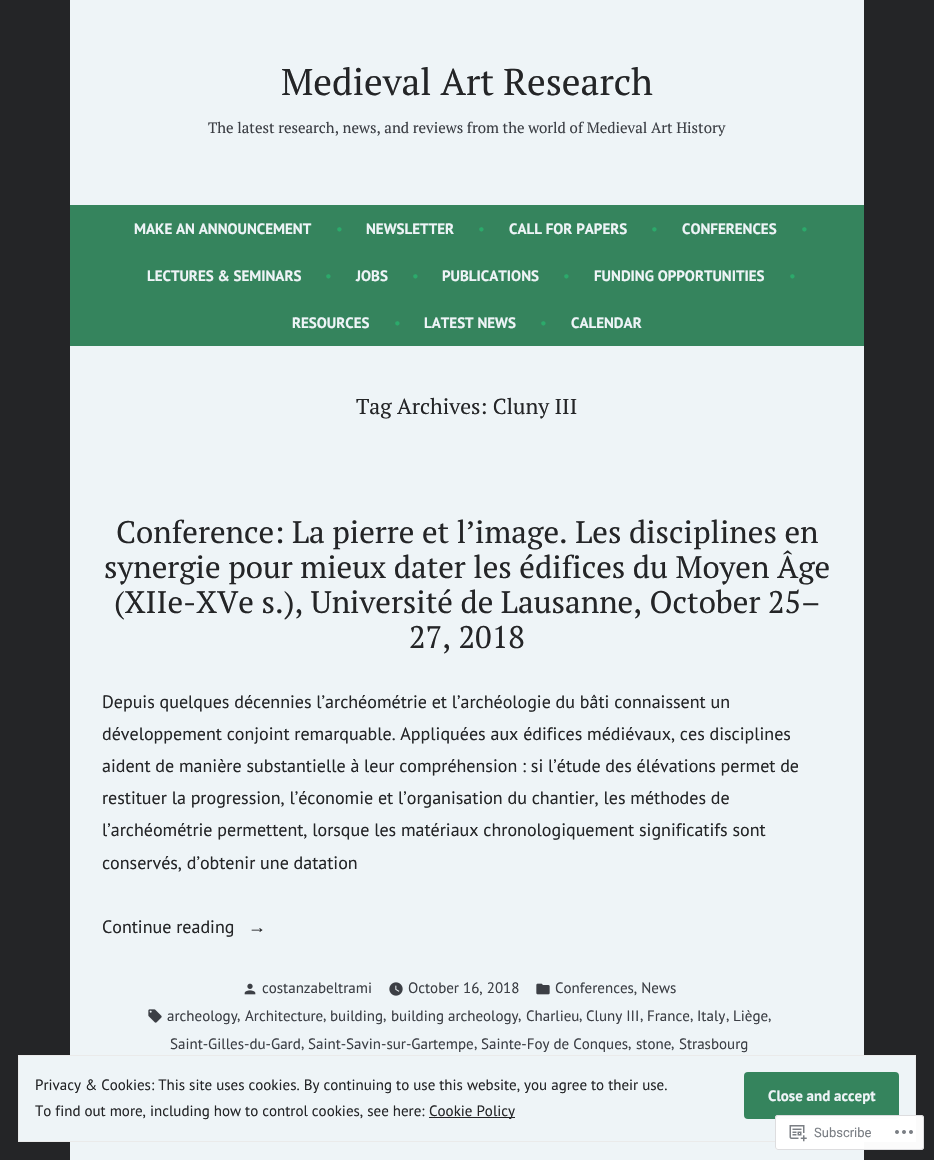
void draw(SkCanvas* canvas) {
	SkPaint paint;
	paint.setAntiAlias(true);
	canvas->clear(0xff242527);
	paint.setColor(0xffeef4f7);
	canvas->drawRect(SkRect::MakeXYWH(70, 0, 794, 1160), paint);
	SkFont f1(fontMgr->matchFamilyStyle("PT Serif", SkFontStyle::Normal()), 37.25);
	f1.setSubpixel(true);
	paint.setColor(0xff242527);
	canvas->drawString("Medieval Art Research", 281, 95, f1, paint);
	SkFont f2(fontMgr->matchFamilyStyle("PT Serif", SkFontStyle::Normal()), 15);
	f2.setSubpixel(true);
	paint.setColor(0xff3c3f45);
	canvas->drawString("The latest research, news, and reviews from the world of Medieval Art History", 208, 133, f2, paint);
	paint.setColor(0xff35845d);
	canvas->drawRect(SkRect::MakeXYWH(70, 205, 794, 141), paint);
	SkFont f3(fontMgr->matchFamilyStyle("PT Sans", SkFontStyle::Bold()), 15);
	f3.setSubpixel(true);
	paint.setColor(0xffeef4f7);
	canvas->drawString("MAKE AN ANNOUNCEMENT", 134, 234, f3, paint);
	SkFont f4(fontMgr->matchFamilyStyle("PT Sans", SkFontStyle::Normal()), 15);
	f4.setSubpixel(true);
	paint.setColor(0xff2baa6b);
	canvas->drawString("•", 336, 234, f4, paint);
	paint.setColor(0xffeef4f7);
	canvas->drawString("NEWSLETTER", 366, 234, f3, paint);
	paint.setColor(0xff2baa6b);
	canvas->drawString("•", 478, 234, f4, paint);
	paint.setColor(0xffeef4f7);
	canvas->drawString("CALL FOR PAPERS", 509, 234, f3, paint);
	paint.setColor(0xff2baa6b);
	canvas->drawString("•", 651, 234, f4, paint);
	paint.setColor(0xffeef4f7);
	canvas->drawString("CONFERENCES", 682, 234, f3, paint);
	paint.setColor(0xff2baa6b);
	canvas->drawString("•", 801, 234, f4, paint);
	paint.setColor(0xffeef4f7);
	canvas->drawString("LECTURES & SEMINARS", 147, 281, f3, paint);
	paint.setColor(0xff2baa6b);
	canvas->drawString("•", 325, 281, f4, paint);
	paint.setColor(0xffeef4f7);
	canvas->drawString("JOBS", 356, 281, f3, paint);
	paint.setColor(0xff2baa6b);
	canvas->drawString("•", 412, 281, f4, paint);
	paint.setColor(0xffeef4f7);
	canvas->drawString("PUBLICATIONS", 442, 281, f3, paint);
	paint.setColor(0xff2baa6b);
	canvas->drawString("•", 563, 281, f4, paint);
	paint.setColor(0xffeef4f7);
	canvas->drawString("FUNDING OPPORTUNITIES", 594, 281, f3, paint);
	paint.setColor(0xff2baa6b);
	canvas->drawString("•", 789, 281, f4, paint);
	paint.setColor(0xffeef4f7);
	canvas->drawString("RESOURCES", 292, 328, f3, paint);
	paint.setColor(0xff2baa6b);
	canvas->drawString("•", 394, 328, f4, paint);
	paint.setColor(0xffeef4f7);
	canvas->drawString("LATEST NEWS", 424, 328, f3, paint);
	paint.setColor(0xff2baa6b);
	canvas->drawString("•", 540, 328, f4, paint);
	paint.setColor(0xffeef4f7);
	canvas->drawString("CALENDAR", 571, 328, f3, paint);
	SkFont f5(fontMgr->matchFamilyStyle("PT Serif", SkFontStyle::Normal()), 21.6);
	f5.setSubpixel(true);
	paint.setColor(0xff242527);
	canvas->drawString("Tag Archives: Cluny III", 356, 414, f5, paint);
	SkFont f6(fontMgr->matchFamilyStyle("PT Serif", SkFontStyle::Normal()), 31.1);
	f6.setSubpixel(true);
	canvas->drawString("Conference: La pierre et l’image. Les disciplines en", 116, 543, f6, paint);
	canvas->drawString("synergie pour mieux dater les édifices du Moyen Âge", 104, 578, f6, paint);
	canvas->drawString("(XIIe-XVe s.), Université de Lausanne, October 25–", 114, 613, f6, paint);
	canvas->drawString("27, 2018", 409, 648, f6, paint);
	SkFont f7(fontMgr->matchFamilyStyle("PT Sans", SkFontStyle::Normal()), 18);
	f7.setSubpixel(true);
	canvas->drawString("Depuis quelques décennies l’archéométrie et l’archéologie du bâti connaissent un", 102, 708, f7, paint);
	canvas->drawString("développement conjoint remarquable. Appliquées aux édifices médiévaux, ces disciplines", 102, 740, f7, paint);
	canvas->drawString("aident de manière substantielle à leur compréhension : si l’étude des élévations permet de", 102, 772, f7, paint);
	canvas->drawString("restituer la progression, l’économie et l’organisation du chantier, les méthodes de", 102, 804, f7, paint);
	canvas->drawString("l’archéométrie permettent, lorsque les matériaux chronologiquement significatifs sont", 102, 836, f7, paint);
	canvas->drawString("conservés, d’obtenir une datation", 102, 869, f7, paint);
	canvas->drawString("Continue reading", 102, 933, f7, paint);
	SkFont f8(fontMgr->matchFamilyStyle("Liberation Sans", SkFontStyle::Normal()), 18);
	f8.setSubpixel(true);
	canvas->drawString("→", 248, 933, f8, paint);
	canvas->drawImageRect(SkImages::DeferredFromEncodedData(SkData::MakeFromFileName("img1.png")), SkRect::MakeXYWH(244, 983, 12, 12), SkSamplingOptions());
	paint.setColor(0xff3c3f45);
	canvas->drawString("costanzabeltrami", 262, 993, f4, paint);
	canvas->drawImageRect(SkImages::DeferredFromEncodedData(SkData::MakeFromFileName("img2.png")), SkRect::MakeXYWH(389, 982, 14, 14), SkSamplingOptions());
	canvas->drawString("October 16, 2018", 408, 993, f4, paint);
	canvas->drawImageRect(SkImages::DeferredFromEncodedData(SkData::MakeFromFileName("img3.png")), SkRect::MakeXYWH(536, 983, 14, 12), SkSamplingOptions());
	canvas->drawString("Conferences, News", 555, 993, f4, paint);
	canvas->drawImageRect(SkImages::DeferredFromEncodedData(SkData::MakeFromFileName("img4.png")), SkRect::MakeXYWH(148, 1009, 14, 14), SkSamplingOptions());
	canvas->drawString("archeology", 167, 1021, f4, paint);
	canvas->drawString(",", 237, 1020, f4, paint);
	canvas->drawString("Architecture", 245, 1021, f4, paint);
	canvas->drawString(",", 323, 1020, f4, paint);
	canvas->drawString("building", 330, 1021, f4, paint);
	canvas->drawString(",", 383, 1020, f4, paint);
	canvas->drawString("building archeology", 391, 1021, f4, paint);
	canvas->drawString(",", 518, 1020, f4, paint);
	canvas->drawString("Charlieu", 526, 1021, f4, paint);
	canvas->drawString(",", 579, 1020, f4, paint);
	canvas->drawString("Cluny III", 586, 1021, f4, paint);
	canvas->drawString(",", 640, 1020, f4, paint);
	canvas->drawString("France", 647, 1021, f4, paint);
	canvas->drawString(",", 690, 1020, f4, paint);
	canvas->drawString("Italy", 697, 1021, f4, paint);
	canvas->drawString(",", 726, 1020, f4, paint);
	canvas->drawString("Liège", 733, 1021, f4, paint);
	canvas->drawString(",", 768, 1020, f4, paint);
	canvas->drawString("Saint-Gilles-du-Gard", 170, 1049, f4, paint);
	canvas->drawString(",", 301, 1048, f4, paint);
	canvas->drawString("Saint-Savin-sur-Gartempe", 308, 1049, f4, paint);
	canvas->drawString(",", 474, 1048, f4, paint);
	canvas->drawString("Sainte-Foy de Conques", 481, 1049, f4, paint);
	canvas->drawString(",", 628, 1048, f4, paint);
	canvas->drawString("stone", 636, 1049, f4, paint);
	canvas->drawString(",", 671, 1048, f4, paint);
	canvas->drawString("Strasbourg", 679, 1049, f4, paint);
	paint.setColor(0xffeef4f7);
	canvas->drawRect(SkRect::MakeXYWH(18.5, 1055.5, 897, 86), paint);
	paint.setStroke(true);
	paint.setStrokeWidth(1);
	paint.setColor(0xffeaeaea);
	canvas->drawRect(SkRect::MakeXYWH(18.5, 1055.5, 897, 86), paint);
	paint.setStroke(false);
	paint.setColor(0xff242527);
	canvas->drawString("Privacy & Cookies: This site uses cookies. By continuing to use this website, you agree to their use.", 35, 1090, f4, paint);
	paint.setColor(0xff35845d);
	canvas->drawRoundRect(SkRect::MakeXYWH(744, 1072, 155, 47), 4, 4, paint);
	paint.setColor(0xffeef4f7);
	canvas->drawString("Close and accept", 768, 1101, f3, paint);
	paint.setColor(0xff242527);
	canvas->drawString("To find out more, including how to control cookies, see here:", 35, 1116, f4, paint);
	canvas->drawRect(SkRect::MakeXYWH(429, 1117, 86, 1), paint);
	canvas->drawString("Cookie Policy", 429, 1116, f4, paint);
	paint.setColor(0xfaffffff);
	canvas->drawRoundRect(SkRect::MakeXYWH(775, 1115, 149, 35), 3, 3, paint);
	paint.setStroke(true);
	paint.setColor(0xfadcdcde);
	canvas->drawRoundRect(SkRect::MakeXYWH(775.5, 1115.5, 148, 34), 2.5, 2.5, paint);
	canvas->drawImageRect(SkImages::DeferredFromEncodedData(SkData::MakeFromFileName("img5.png")), SkRect::MakeXYWH(789, 1125, 18, 17), SkSamplingOptions());
	SkFont f9(fontMgr->matchFamilyStyle("Roboto", SkFontStyle::Normal()), 13);
	f9.setSubpixel(true);
	paint.setStroke(false);
	paint.setColor(0xff7a7e84);
	canvas->drawString("Subscribe", 814, 1137, f9, paint);
	canvas->drawImageRect(SkImages::DeferredFromEncodedData(SkData::MakeFromFileName("img6.png")), SkRect::MakeXYWH(895, 1130, 18, 4), SkSamplingOptions());
}
